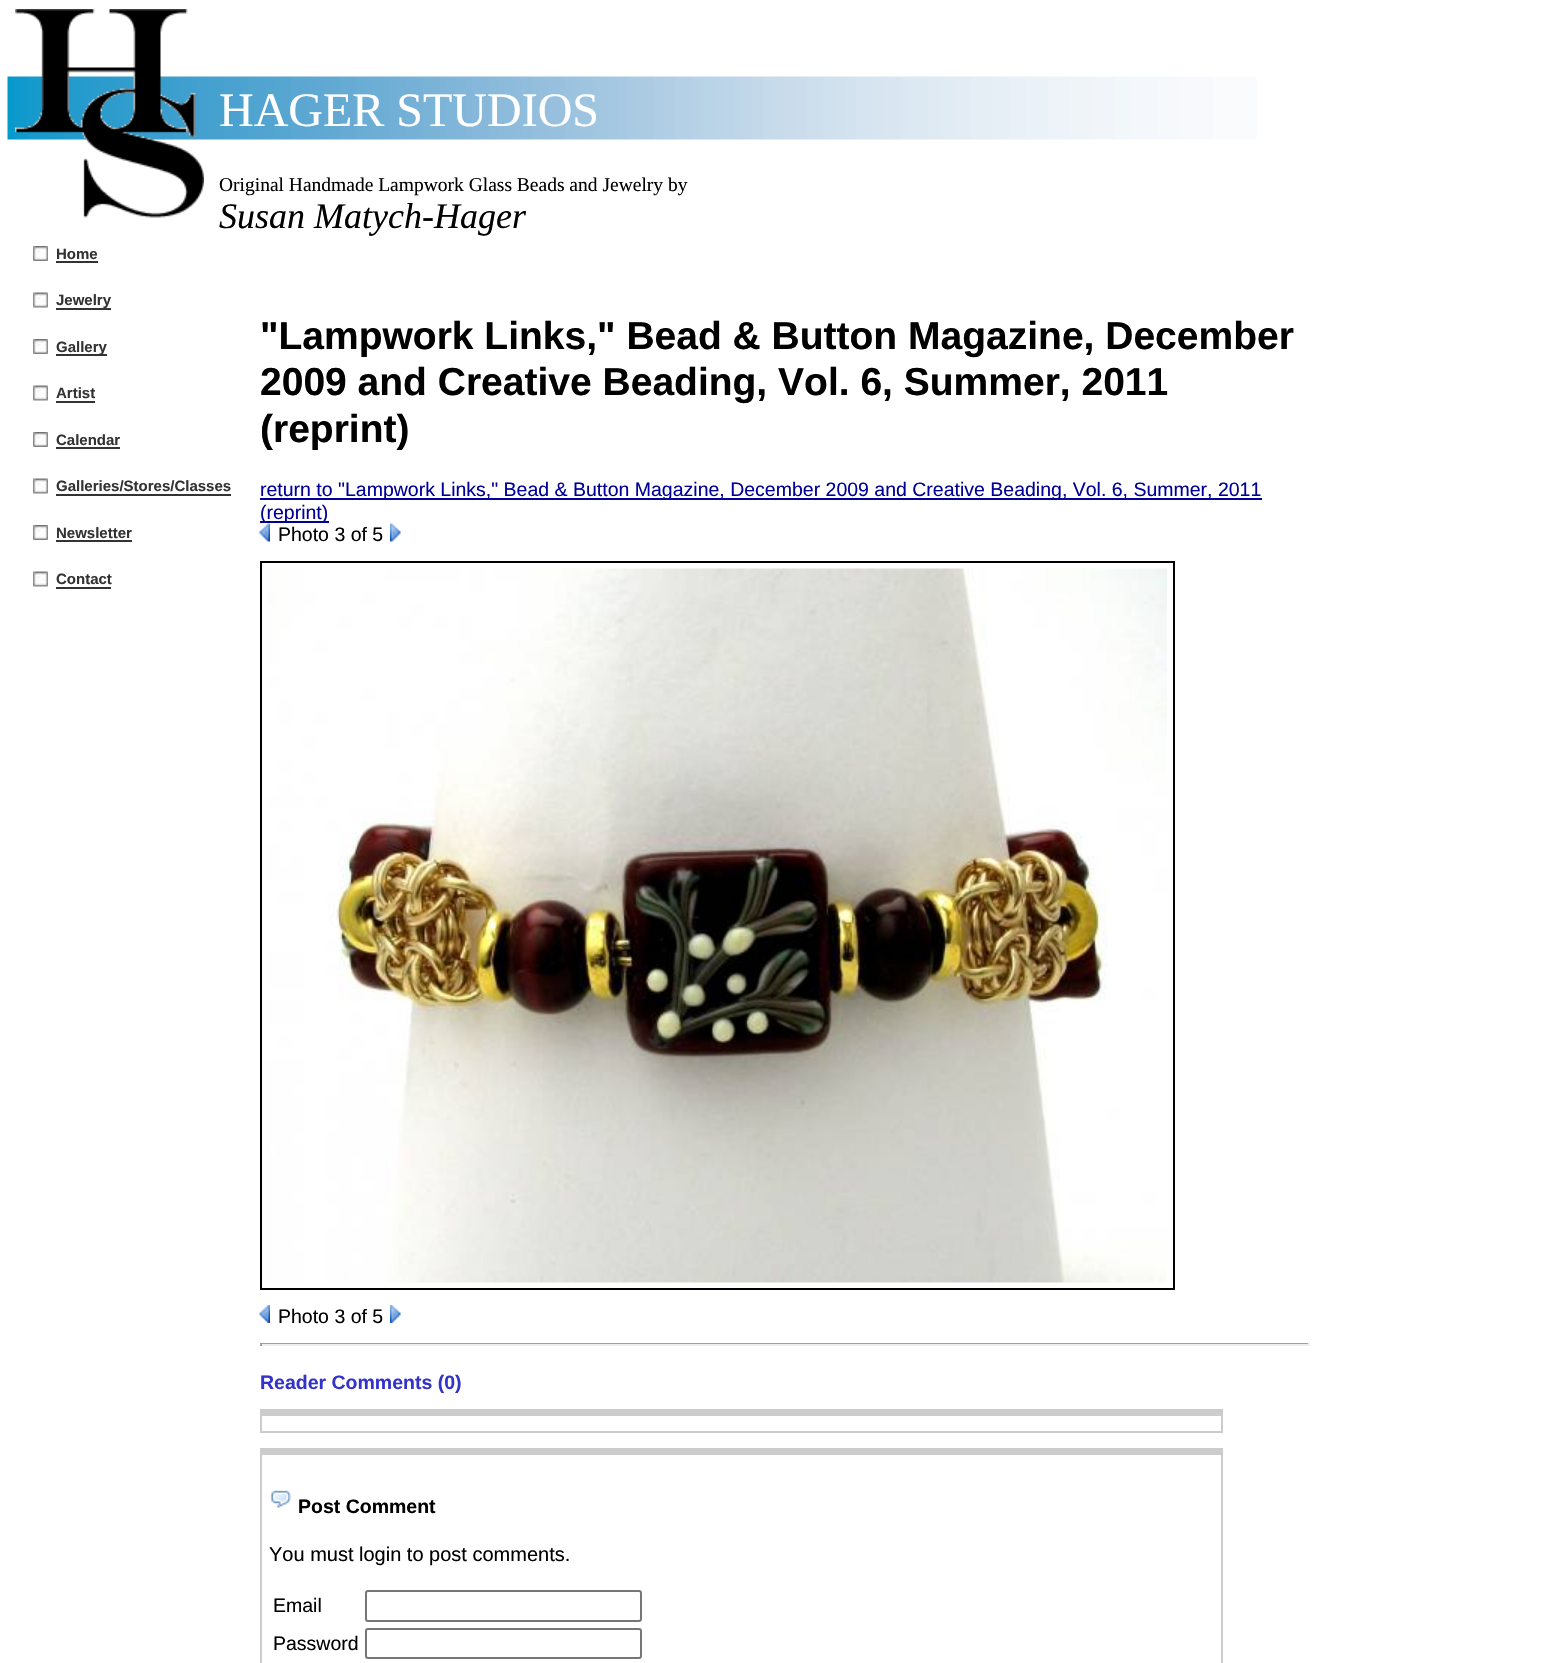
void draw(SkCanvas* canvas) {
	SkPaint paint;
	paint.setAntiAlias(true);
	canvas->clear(0xffffffff);
	canvas->drawImageRect(SkImages::DeferredFromEncodedData(SkData::MakeFromFileName("img2.png")), SkRect::MakeXYWH(7, 76, 1250, 64), SkSamplingOptions());
	canvas->drawImageRect(SkImages::DeferredFromEncodedData(SkData::MakeFromFileName("img1.png")), SkRect::MakeXYWH(15, 9, 189, 209), SkSamplingOptions());
	SkFont f1(fontMgr->matchFamilyStyle("Liberation Serif", SkFontStyle::Normal()), 48);
	f1.setSubpixel(true);
	paint.setColor(0xffffffff);
	canvas->drawString("HAGER STUDIOS", 219, 126, f1, paint);
	SkFont f2(fontMgr->matchFamilyStyle("Liberation Serif", SkFontStyle::Normal()), 19.5);
	f2.setSubpixel(true);
	paint.setColor(0xff000000);
	canvas->drawString("Original Handmade Lampwork Glass Beads and Jewelry by", 219, 191, f2, paint);
	SkFont f3(fontMgr->matchFamilyStyle("Liberation Serif", SkFontStyle::Italic()), 36);
	f3.setSubpixel(true);
	canvas->drawString("Susan Matych-Hager", 219, 228, f3, paint);
	canvas->drawImageRect(SkImages::DeferredFromEncodedData(SkData::MakeFromFileName("img3.png")), SkRect::MakeXYWH(33, 246, 15, 15), SkSamplingOptions());
	SkFont f4(fontMgr->matchFamilyStyle("Liberation Sans", SkFontStyle::Bold()), 15);
	f4.setSubpixel(true);
	paint.setColor(0xff333333);
	canvas->drawString("Home", 56, 259, f4, paint);
	canvas->drawRect(SkRect::MakeXYWH(56, 261, 42, 2), paint);
	canvas->drawImageRect(SkImages::DeferredFromEncodedData(SkData::MakeFromFileName("img4.png")), SkRect::MakeXYWH(33, 292, 15, 16), SkSamplingOptions());
	canvas->drawRect(SkRect::MakeXYWH(56, 308, 55, 2), paint);
	canvas->drawString("Jewelry", 56, 305, f4, paint);
	canvas->drawImageRect(SkImages::DeferredFromEncodedData(SkData::MakeFromFileName("img3.png")), SkRect::MakeXYWH(33, 339, 15, 15), SkSamplingOptions());
	canvas->drawRect(SkRect::MakeXYWH(56, 354, 51, 2), paint);
	canvas->drawString("Gallery", 56, 352, f4, paint);
	canvas->drawImageRect(SkImages::DeferredFromEncodedData(SkData::MakeFromFileName("img4.png")), SkRect::MakeXYWH(33, 385, 15, 16), SkSamplingOptions());
	canvas->drawString("Artist", 56, 398, f4, paint);
	canvas->drawRect(SkRect::MakeXYWH(56, 401, 39, 2), paint);
	canvas->drawImageRect(SkImages::DeferredFromEncodedData(SkData::MakeFromFileName("img3.png")), SkRect::MakeXYWH(33, 432, 15, 15), SkSamplingOptions());
	canvas->drawString("Calendar", 56, 445, f4, paint);
	canvas->drawRect(SkRect::MakeXYWH(56, 447, 64, 2), paint);
	canvas->drawImageRect(SkImages::DeferredFromEncodedData(SkData::MakeFromFileName("img4.png")), SkRect::MakeXYWH(33, 478, 15, 16), SkSamplingOptions());
	canvas->drawString("Galleries/Stores/Classes", 56, 491, f4, paint);
	canvas->drawRect(SkRect::MakeXYWH(56, 494, 175, 2), paint);
	canvas->drawImageRect(SkImages::DeferredFromEncodedData(SkData::MakeFromFileName("img3.png")), SkRect::MakeXYWH(33, 525, 15, 15), SkSamplingOptions());
	canvas->drawString("Newsletter", 56, 538, f4, paint);
	canvas->drawRect(SkRect::MakeXYWH(56, 540, 76, 2), paint);
	canvas->drawImageRect(SkImages::DeferredFromEncodedData(SkData::MakeFromFileName("img4.png")), SkRect::MakeXYWH(33, 571, 15, 16), SkSamplingOptions());
	canvas->drawString("Contact", 56, 584, f4, paint);
	canvas->drawRect(SkRect::MakeXYWH(56, 587, 55, 2), paint);
	SkFont f5(fontMgr->matchFamilyStyle("Liberation Sans", SkFontStyle::Bold()), 39);
	f5.setSubpixel(true);
	paint.setColor(0xff000000);
	canvas->drawString("\"Lampwork Links,\" Bead & Button Magazine, December", 260, 349, f5, paint);
	canvas->drawString("2009 and Creative Beading, Vol. 6, Summer, 2011", 260, 395, f5, paint);
	canvas->drawString("(reprint)", 260, 442, f5, paint);
	paint.setColor(0xff000099);
	canvas->drawRect(SkRect::MakeXYWH(260, 498, 1002, 2), paint);
	SkFont f6(fontMgr->matchFamilyStyle("Liberation Sans", SkFontStyle::Normal()), 19.5);
	f6.setSubpixel(true);
	canvas->drawString("return to \"Lampwork Links,\" Bead & Button Magazine, December 2009 and Creative Beading, Vol. 6, Summer, 2011", 260, 496, f6, paint);
	canvas->drawRect(SkRect::MakeXYWH(260, 521, 69, 2), paint);
	canvas->drawString("(reprint)", 260, 519, f6, paint);
	canvas->drawImageRect(SkImages::DeferredFromEncodedData(SkData::MakeFromFileName("img5.png")), SkRect::MakeXYWH(259, 523, 11, 19), SkSamplingOptions());
	paint.setColor(0xff000000);
	canvas->drawString("Photo 3 of 5", 278, 541, f6, paint);
	canvas->drawImageRect(SkImages::DeferredFromEncodedData(SkData::MakeFromFileName("img6.png")), SkRect::MakeXYWH(390, 523, 11, 19), SkSamplingOptions());
	paint.setStroke(true);
	paint.setStrokeWidth(2);
	canvas->drawRect(SkRect::MakeXYWH(261, 562, 913, 727), paint);
	canvas->drawImageRect(SkImages::DeferredFromEncodedData(SkData::MakeFromFileName("img7.png")), SkRect::MakeXYWH(267, 568, 900, 715), SkSamplingOptions());
	canvas->drawImageRect(SkImages::DeferredFromEncodedData(SkData::MakeFromFileName("img8.png")), SkRect::MakeXYWH(259, 1305, 11, 18), SkSamplingOptions());
	paint.setStroke(false);
	canvas->drawString("Photo 3 of 5", 278, 1323, f6, paint);
	canvas->drawImageRect(SkImages::DeferredFromEncodedData(SkData::MakeFromFileName("img9.png")), SkRect::MakeXYWH(390, 1305, 11, 18), SkSamplingOptions());
	paint.setColor(0xff9f9f9f);
	canvas->drawRect(SkRect::MakeXYWH(260, 1343, 1050, 1), paint);
	paint.setColor(0xffeeeeee);
	canvas->drawRect(SkRect::MakeXYWH(1308, 1343, 2, 3), paint);
	canvas->drawRect(SkRect::MakeXYWH(260, 1344, 1050, 2), paint);
	paint.setColor(0xff9f9f9f);
	canvas->drawRect(SkRect::MakeXYWH(260, 1343, 2, 3), paint);
	SkFont f7(fontMgr->matchFamilyStyle("Liberation Sans", SkFontStyle::Bold()), 19.5);
	f7.setSubpixel(true);
	paint.setColor(0xff3333cc);
	canvas->drawString("Reader Comments (0)", 260, 1389, f7, paint);
	paint.setColor(0xffcccccc);
	canvas->drawRect(SkRect::MakeXYWH(260, 1409, 963, 7), paint);
	canvas->drawRect(SkRect::MakeXYWH(1221, 1409, 2, 24), paint);
	canvas->drawRect(SkRect::MakeXYWH(260, 1431, 963, 2), paint);
	canvas->drawRect(SkRect::MakeXYWH(260, 1409, 2, 24), paint);
	canvas->drawRect(SkRect::MakeXYWH(260, 1448, 963, 7), paint);
	canvas->drawRect(SkRect::MakeXYWH(1221, 1448, 2, 215), paint);
	canvas->drawRect(SkRect::MakeXYWH(260, 1448, 2, 215), paint);
	canvas->drawImageRect(SkImages::DeferredFromEncodedData(SkData::MakeFromFileName("img10.png")), SkRect::MakeXYWH(270, 1490, 22, 18), SkSamplingOptions());
	paint.setColor(0xff000000);
	canvas->drawString("Post Comment", 298, 1513, f7, paint);
	SkFont f8(fontMgr->matchFamilyStyle("Liberation Sans", SkFontStyle::Normal()), 20);
	f8.setSubpixel(true);
	canvas->drawString("You must login to post comments.", 269, 1561, f8, paint);
	canvas->drawString("Email", 273, 1612, f6, paint);
	paint.setStroke(true);
	paint.setColor(0xff767676);
	canvas->drawRoundRect(SkRect::MakeXYWH(366, 1591, 275, 30), 2, 2, paint);
	paint.setStroke(false);
	paint.setColor(0xff000000);
	canvas->drawString("Password", 273, 1650, f6, paint);
	paint.setStroke(true);
	paint.setColor(0xff767676);
	canvas->drawRoundRect(SkRect::MakeXYWH(366, 1629, 275, 29), 2, 2, paint);
}
